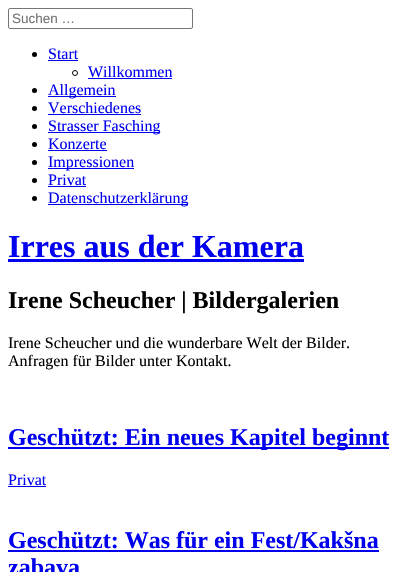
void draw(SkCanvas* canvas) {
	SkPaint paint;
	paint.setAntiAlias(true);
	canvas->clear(0xffffffff);
	paint.setStroke(true);
	paint.setStrokeWidth(1);
	paint.setColor(0xff767676);
	canvas->drawRoundRect(SkRect::MakeXYWH(8.5, 8.5, 184, 20), 1.5, 1.5, paint);
	SkFont f1(fontMgr->matchFamilyStyle("Liberation Sans", SkFontStyle::Normal()), 13.5);
	f1.setSubpixel(true);
	paint.setStroke(false);
	paint.setColor(0xff757575);
	canvas->drawString("Suchen …", 12, 23, f1, paint);
	paint.setColor(0xff000000);
	canvas->drawCircle(34.5, 54.5, 2.5, paint);
	SkFont f2(fontMgr->matchFamilyStyle("Liberation Serif", SkFontStyle::Normal()), 16);
	f2.setSubpixel(true);
	paint.setColor(0xff0000ee);
	canvas->drawString("Start", 48, 59, f2, paint);
	canvas->drawRect(SkRect::MakeXYWH(48, 60, 30, 1), paint);
	paint.setStroke(true);
	paint.setColor(0xff000000);
	canvas->drawCircle(75, 73, 2.5, paint);
	paint.setStroke(false);
	paint.setColor(0xff0000ee);
	canvas->drawString("Willkommen", 88, 77, f2, paint);
	canvas->drawRect(SkRect::MakeXYWH(88, 78, 84, 1), paint);
	paint.setColor(0xff000000);
	canvas->drawCircle(34.5, 90.5, 2.5, paint);
	paint.setColor(0xff0000ee);
	canvas->drawRect(SkRect::MakeXYWH(48, 96, 68, 1), paint);
	canvas->drawString("Allgemein", 48, 95, f2, paint);
	paint.setColor(0xff000000);
	canvas->drawCircle(34.5, 108.5, 2.5, paint);
	paint.setColor(0xff0000ee);
	canvas->drawString("Verschiedenes", 48, 113, f2, paint);
	canvas->drawRect(SkRect::MakeXYWH(48, 114, 93, 1), paint);
	paint.setColor(0xff000000);
	canvas->drawCircle(34.5, 126.5, 2.5, paint);
	paint.setColor(0xff0000ee);
	canvas->drawRect(SkRect::MakeXYWH(48, 132, 112, 1), paint);
	canvas->drawString("Strasser Fasching", 48, 131, f2, paint);
	paint.setColor(0xff000000);
	canvas->drawCircle(34.5, 144.5, 2.5, paint);
	paint.setColor(0xff0000ee);
	canvas->drawString("Konzerte", 48, 149, f2, paint);
	canvas->drawRect(SkRect::MakeXYWH(48, 150, 59, 1), paint);
	paint.setColor(0xff000000);
	canvas->drawCircle(34.5, 162.5, 2.5, paint);
	paint.setColor(0xff0000ee);
	canvas->drawRect(SkRect::MakeXYWH(48, 168, 86, 1), paint);
	canvas->drawString("Impressionen", 48, 167, f2, paint);
	paint.setColor(0xff000000);
	canvas->drawCircle(34.5, 180.5, 2.5, paint);
	paint.setColor(0xff0000ee);
	canvas->drawString("Privat", 48, 185, f2, paint);
	canvas->drawRect(SkRect::MakeXYWH(48, 186, 38, 1), paint);
	paint.setColor(0xff000000);
	canvas->drawCircle(34.5, 198.5, 2.5, paint);
	paint.setColor(0xff0000ee);
	canvas->drawRect(SkRect::MakeXYWH(48, 204, 140, 1), paint);
	canvas->drawString("Datenschutzerklärung", 48, 203, f2, paint);
	SkFont f3(fontMgr->matchFamilyStyle("Liberation Serif", SkFontStyle::Bold()), 32);
	f3.setSubpixel(true);
	canvas->drawString("Irres aus der Kamera", 8, 257, f3, paint);
	canvas->drawRect(SkRect::MakeXYWH(8, 259, 296, 3), paint);
	SkFont f4(fontMgr->matchFamilyStyle("Liberation Serif", SkFontStyle::Bold()), 24);
	f4.setSubpixel(true);
	paint.setColor(0xff000000);
	canvas->drawString("Irene Scheucher | Bildergalerien", 8, 308, f4, paint);
	canvas->drawString("Irene Scheucher und die wunderbare Welt der Bilder.", 8, 348, f2, paint);
	canvas->drawString("Anfragen für Bilder unter Kontakt.", 8, 366, f2, paint);
	paint.setColor(0xff0000ee);
	canvas->drawRect(SkRect::MakeXYWH(8, 447, 381, 2), paint);
	canvas->drawString("Geschützt: Ein neues Kapitel beginnt", 8, 445, f4, paint);
	canvas->drawString("Privat", 8, 485, f2, paint);
	canvas->drawRect(SkRect::MakeXYWH(8, 486, 38, 1), paint);
	canvas->drawString("Geschützt: Was für ein Fest/Kakšna", 8, 548, f4, paint);
	canvas->drawRect(SkRect::MakeXYWH(8, 550, 371, 2), paint);
	canvas->drawString("zabava", 8, 575, f4, paint);
}
